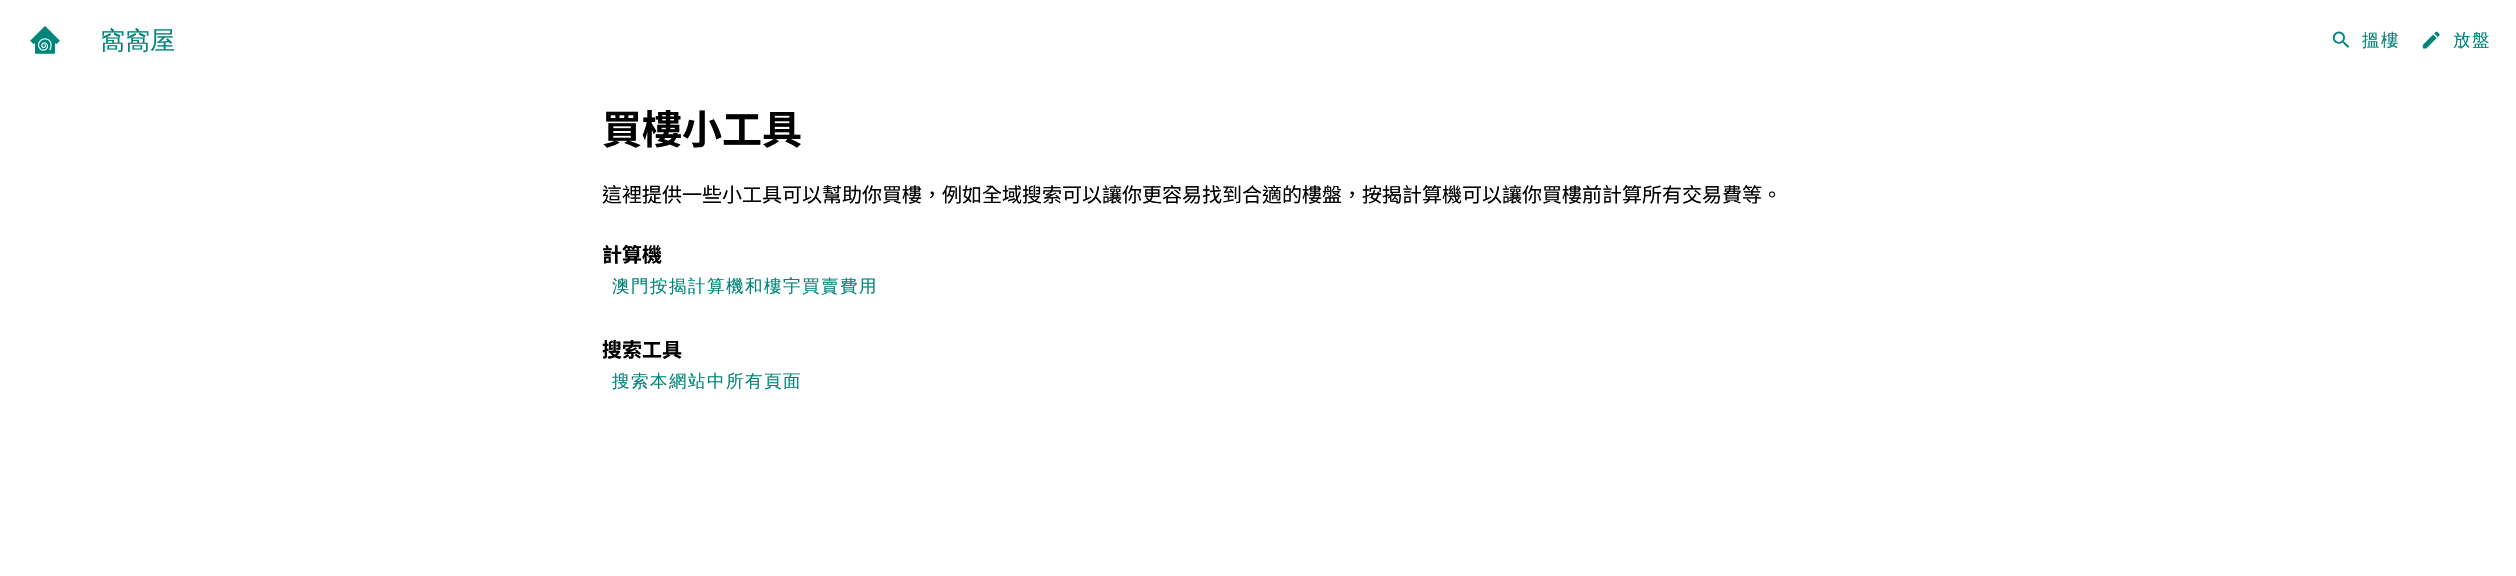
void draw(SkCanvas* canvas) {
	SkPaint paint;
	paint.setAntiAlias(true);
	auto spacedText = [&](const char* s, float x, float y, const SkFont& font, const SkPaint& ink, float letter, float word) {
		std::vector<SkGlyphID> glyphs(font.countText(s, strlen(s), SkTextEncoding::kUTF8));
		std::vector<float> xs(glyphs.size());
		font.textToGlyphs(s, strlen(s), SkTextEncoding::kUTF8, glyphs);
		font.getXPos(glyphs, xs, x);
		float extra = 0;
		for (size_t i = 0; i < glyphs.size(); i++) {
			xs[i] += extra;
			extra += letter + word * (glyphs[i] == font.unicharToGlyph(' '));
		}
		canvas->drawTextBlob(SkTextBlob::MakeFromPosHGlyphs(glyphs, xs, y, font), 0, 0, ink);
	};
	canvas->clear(0xffffffff);
	canvas->drawImageRect(SkImages::DeferredFromEncodedData(SkData::MakeFromFileName("img1.png")), SkRect::MakeXYWH(30, 26, 30, 28), SkSamplingOptions());
	SkFont f1(fontMgr->matchFamilyStyle("WenQuanYi Zen Hei", SkFontStyle(500, SkFontStyle::kNormal_Width, SkFontStyle::kUpright_Slant)), 25);
	f1.setSubpixel(true);
	paint.setColor(0xff008579);
	canvas->drawString("窩窩屋", 100, 49, f1, paint);
	canvas->drawImageRect(SkImages::DeferredFromEncodedData(SkData::MakeFromFileName("img2.png")), SkRect::MakeXYWH(2332, 31, 18, 17), SkSamplingOptions());
	SkFont f2(fontMgr->matchFamilyStyle("WenQuanYi Zen Hei", SkFontStyle(500, SkFontStyle::kNormal_Width, SkFontStyle::kUpright_Slant)), 17.5);
	f2.setSubpixel(true);
	spacedText("搵樓", 2362, 46, f2, paint, 1.5, 0);
	canvas->drawImageRect(SkImages::DeferredFromEncodedData(SkData::MakeFromFileName("img3.png")), SkRect::MakeXYWH(2422, 31, 18, 18), SkSamplingOptions());
	spacedText("放盤", 2453, 46, f2, paint, 1.5, 0);
	SkFont f3(fontMgr->matchFamilyStyle("Noto Sans TC", SkFontStyle::Bold()), 40);
	f3.setSubpixel(true);
	paint.setColor(0xff000000);
	canvas->drawString("買樓小工具", 602, 144, f3, paint);
	SkFont f4(fontMgr->matchFamilyStyle("Noto Sans TC", SkFontStyle::Normal()), 20);
	f4.setSubpixel(true);
	canvas->drawString("這裡提供一些小工具可以幫助你買樓，例如全域搜索可以讓你更容易找到合適的樓盤，按揭計算機可以讓你買樓前計算所有交易費等。", 602, 202, f4, paint);
	SkFont f5(fontMgr->matchFamilyStyle("Noto Sans TC", SkFontStyle::Bold()), 20);
	f5.setSubpixel(true);
	canvas->drawString("計算機", 602, 262, f5, paint);
	paint.setColor(0xff008579);
	spacedText("澳門按揭計算機和樓宇買賣費用", 612, 292, f2, paint, 1.5, 0);
	paint.setColor(0xff000000);
	canvas->drawString("搜索工具", 602, 357, f5, paint);
	paint.setColor(0xff008579);
	spacedText("搜索本網站中所有頁面", 612, 387, f2, paint, 1.5, 0);
}
